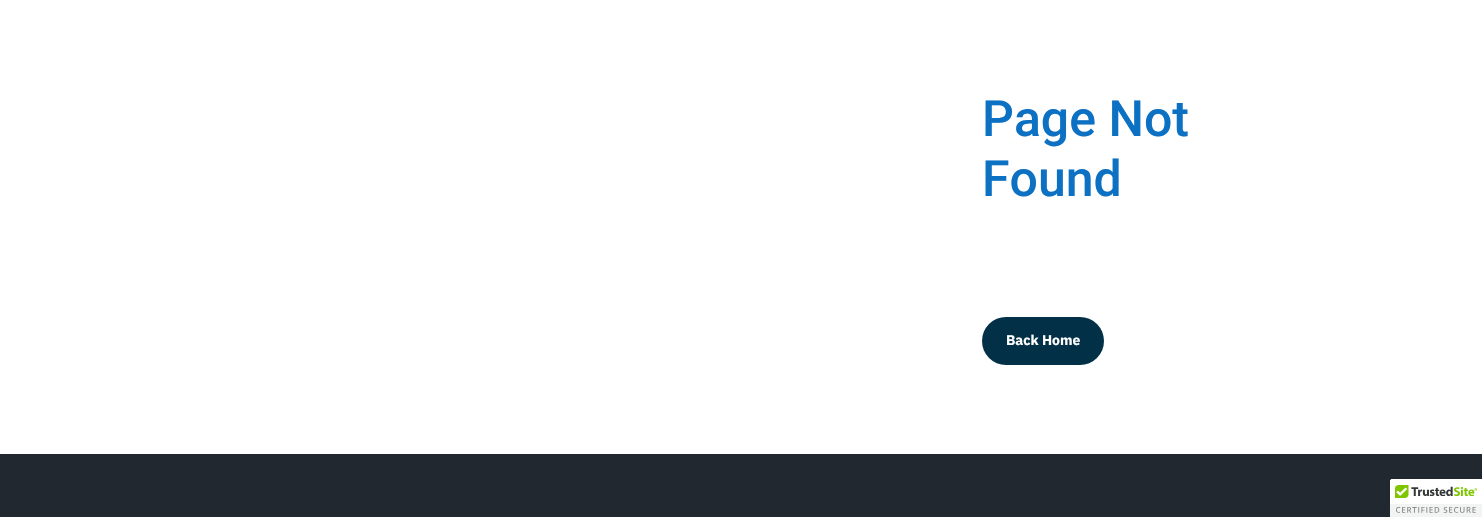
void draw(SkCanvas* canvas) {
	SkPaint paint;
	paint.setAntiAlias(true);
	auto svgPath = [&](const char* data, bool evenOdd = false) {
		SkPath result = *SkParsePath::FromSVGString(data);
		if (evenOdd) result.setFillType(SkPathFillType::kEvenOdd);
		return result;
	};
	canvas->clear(0xff212830);
	paint.setColor(0xffffffff);
	canvas->drawRect(SkRect::MakeXYWH(0, 0, 1482, 454), paint);
	SkFont f1(fontMgr->matchFamilyStyle("Roboto", SkFontStyle(500, SkFontStyle::kNormal_Width, SkFontStyle::kUpright_Slant)), 50);
	f1.setSubpixel(true);
	paint.setColor(0xff0c71c3);
	canvas->drawString("Page Not", 982, 136, f1, paint);
	canvas->drawString("Found", 982, 196, f1, paint);
	paint.setColor(0xff023047);
	canvas->drawRoundRect(SkRect::MakeXYWH(982, 317, 122, 48), 24, 24, paint);
	SkFont f2(fontMgr->matchFamilyStyle("IBM Plex Sans", SkFontStyle::Bold()), 14);
	f2.setSubpixel(true);
	paint.setColor(0xffffffff);
	canvas->drawString("Back Home", 1006, 345, f2, paint);
	canvas->drawPath(svgPath("M1392 479H1482V517H1390V481C1390 480 1391 479 1392 479Z"), paint);
	canvas->drawImageRect(SkImages::DeferredFromEncodedData(SkData::MakeFromFileName("img1.png")), SkRect::MakeXYWH(1390, 479, 92, 38), SkSamplingOptions());
}
